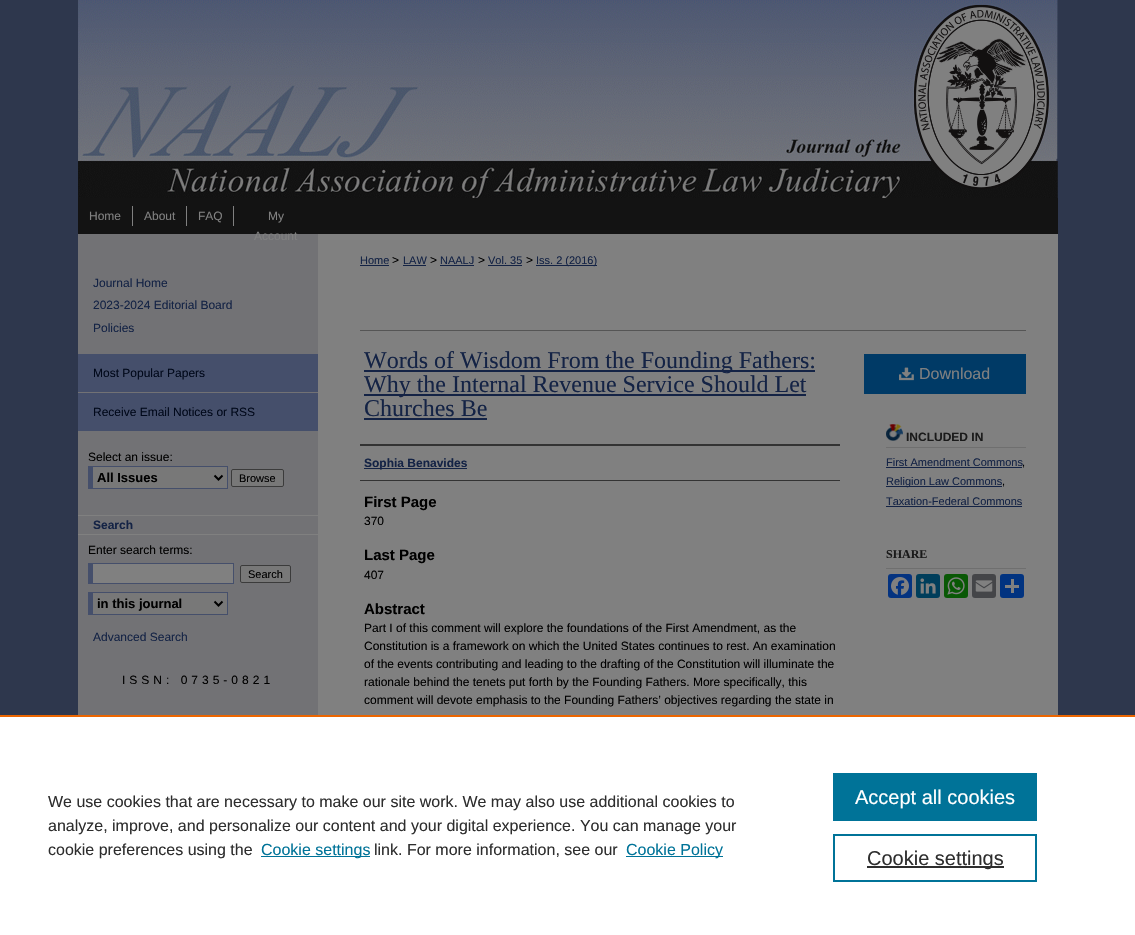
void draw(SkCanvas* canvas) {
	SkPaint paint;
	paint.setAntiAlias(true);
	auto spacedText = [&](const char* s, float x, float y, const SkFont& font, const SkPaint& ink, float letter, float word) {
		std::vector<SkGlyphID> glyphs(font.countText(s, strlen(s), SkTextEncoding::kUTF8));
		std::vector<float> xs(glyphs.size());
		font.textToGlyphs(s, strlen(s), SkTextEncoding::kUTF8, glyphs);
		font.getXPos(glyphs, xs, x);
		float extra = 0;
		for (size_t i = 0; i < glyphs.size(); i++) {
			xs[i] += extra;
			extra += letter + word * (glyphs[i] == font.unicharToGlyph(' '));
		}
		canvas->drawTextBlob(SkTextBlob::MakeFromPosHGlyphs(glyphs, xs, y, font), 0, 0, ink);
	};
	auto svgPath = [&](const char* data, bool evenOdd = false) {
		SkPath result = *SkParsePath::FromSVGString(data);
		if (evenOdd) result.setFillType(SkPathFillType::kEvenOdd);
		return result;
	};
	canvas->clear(0xff2e374d);
	canvas->drawImageRect(SkImages::DeferredFromEncodedData(SkData::MakeFromFileName("img1.png")), SkRect::MakeXYWH(78, 0, 830, 198), SkSamplingOptions());
	canvas->drawImageRect(SkImages::DeferredFromEncodedData(SkData::MakeFromFileName("img2.png")), SkRect::MakeXYWH(908, 0, 150, 198), SkSamplingOptions());
	paint.setColor(0xff131313);
	canvas->drawRect(SkRect::MakeXYWH(78, 198, 980, 36), paint);
	paint.setColor(0xff808080);
	canvas->drawRect(SkRect::MakeXYWH(132, 206, 1, 20), paint);
	SkFont f1(fontMgr->matchFamilyStyle("Liberation Sans", SkFontStyle::Normal()), 12);
	f1.setSubpixel(true);
	canvas->drawString("Home", 89, 220, f1, paint);
	canvas->drawRect(SkRect::MakeXYWH(186, 206, 1, 20), paint);
	canvas->drawString("About", 144, 220, f1, paint);
	canvas->drawRect(SkRect::MakeXYWH(233, 206, 1, 20), paint);
	canvas->drawString("FAQ", 198, 220, f1, paint);
	canvas->drawString("My", 268, 220, f1, paint);
	paint.setColor(0xff727275);
	canvas->drawRect(SkRect::MakeXYWH(78, 234, 240, 481), paint);
	paint.setColor(0xff808080);
	canvas->drawString("Account", 254, 240, f1, paint);
	canvas->drawRect(SkRect::MakeXYWH(318, 234, 740, 481), paint);
	paint.setColor(0xff142345);
	canvas->drawString("Journal Home", 93, 287, f1, paint);
	canvas->drawString("2023-2024 Editorial Board", 93, 309, f1, paint);
	canvas->drawString("Policies", 93, 332, f1, paint);
	paint.setColor(0xff454f6b);
	canvas->drawRect(SkRect::MakeXYWH(78, 354, 240, 38), paint);
	paint.setColor(0xff00081a);
	canvas->drawString("Most Popular Papers", 93, 377, f1, paint);
	paint.setColor(0xff454f6b);
	canvas->drawRect(SkRect::MakeXYWH(78, 393, 240, 38), paint);
	paint.setColor(0xff00081a);
	canvas->drawString("Receive Email Notices or RSS", 93, 416, f1, paint);
	paint.setColor(0xff000000);
	canvas->drawString("Select an issue:", 88, 461, f1, paint);
	paint.setColor(0xff787878);
	canvas->drawRect(SkRect::MakeXYWH(93, 467, 134, 21), paint);
	paint.setColor(0xff454f6b);
	canvas->drawRect(SkRect::MakeXYWH(88, 466, 140, 1), paint);
	canvas->drawRect(SkRect::MakeXYWH(227, 466, 1, 23), paint);
	canvas->drawRect(SkRect::MakeXYWH(88, 488, 140, 1), paint);
	canvas->drawRect(SkRect::MakeXYWH(88, 466, 5, 23), paint);
	paint.setStroke(true);
	paint.setStrokeWidth(2);
	paint.setColor(0xff000000);
	canvas->drawPath(svgPath("M214.5 475.5L218.5 479.5L222.5 475.5"), paint);
	SkFont f2(fontMgr->matchFamilyStyle("Liberation Sans", SkFontStyle::Bold()), 13);
	f2.setSubpixel(true);
	paint.setStroke(false);
	canvas->drawString("All Issues", 97, 482, f2, paint);
	paint.setColor(0xff787878);
	canvas->drawRoundRect(SkRect::MakeXYWH(231.5, 469.5, 52, 17), 1.5, 1.5, paint);
	paint.setStroke(true);
	paint.setStrokeWidth(1);
	paint.setColor(0xff3b3b3b);
	canvas->drawRoundRect(SkRect::MakeXYWH(231.5, 469.5, 52, 17), 1.5, 1.5, paint);
	SkFont f3(fontMgr->matchFamilyStyle("Liberation Sans", SkFontStyle::Normal()), 11);
	f3.setSubpixel(true);
	paint.setStroke(false);
	paint.setColor(0xff000000);
	canvas->drawString("Browse", 239, 482, f3, paint);
	paint.setColor(0xff808080);
	canvas->drawRect(SkRect::MakeXYWH(78, 515, 240, 1), paint);
	canvas->drawRect(SkRect::MakeXYWH(78, 534, 240, 1), paint);
	SkFont f4(fontMgr->matchFamilyStyle("Liberation Sans", SkFontStyle::Bold()), 12);
	f4.setSubpixel(true);
	paint.setColor(0xff142345);
	canvas->drawString("Search", 93, 529, f4, paint);
	paint.setColor(0xff000000);
	canvas->drawString("Enter search terms:", 88, 554, f1, paint);
	paint.setColor(0xff808080);
	canvas->drawRect(SkRect::MakeXYWH(93, 564, 140, 19), paint);
	paint.setColor(0xff454f6b);
	canvas->drawRect(SkRect::MakeXYWH(88, 563, 146, 1), paint);
	canvas->drawRect(SkRect::MakeXYWH(233, 563, 1, 21), paint);
	canvas->drawRect(SkRect::MakeXYWH(88, 583, 146, 1), paint);
	canvas->drawRect(SkRect::MakeXYWH(88, 563, 5, 21), paint);
	paint.setColor(0xff787878);
	canvas->drawRoundRect(SkRect::MakeXYWH(240.5, 565.5, 50, 17), 1.5, 1.5, paint);
	paint.setStroke(true);
	paint.setColor(0xff3b3b3b);
	canvas->drawRoundRect(SkRect::MakeXYWH(240.5, 565.5, 50, 17), 1.5, 1.5, paint);
	paint.setStroke(false);
	paint.setColor(0xff000000);
	canvas->drawString("Search", 248, 578, f3, paint);
	paint.setColor(0xff787878);
	canvas->drawRect(SkRect::MakeXYWH(93, 593, 134, 21), paint);
	paint.setColor(0xff454f6b);
	canvas->drawRect(SkRect::MakeXYWH(88, 592, 140, 1), paint);
	canvas->drawRect(SkRect::MakeXYWH(227, 592, 1, 23), paint);
	canvas->drawRect(SkRect::MakeXYWH(88, 614, 140, 1), paint);
	canvas->drawRect(SkRect::MakeXYWH(88, 592, 5, 23), paint);
	paint.setStroke(true);
	paint.setStrokeWidth(2);
	paint.setColor(0xff000000);
	canvas->drawPath(svgPath("M214.5 601.5L218.5 605.5L222.5 601.5"), paint);
	paint.setStroke(false);
	canvas->drawString("in this journal", 97, 608, f2, paint);
	paint.setColor(0xff142345);
	canvas->drawString("Advanced Search", 93, 641, f1, paint);
	paint.setColor(0xff000000);
	spacedText("ISSN: 0735-0821", 122, 684, f1, paint, 4, 0);
	paint.setColor(0xff142345);
	canvas->drawString("Home", 360, 264, f3, paint);
	canvas->drawRect(SkRect::MakeXYWH(360, 265, 29, 1), paint);
	paint.setColor(0xff000000);
	canvas->drawString(">", 392, 264, f1, paint);
	paint.setColor(0xff142345);
	canvas->drawString("LAW", 403, 264, f3, paint);
	canvas->drawRect(SkRect::MakeXYWH(403, 265, 23, 1), paint);
	paint.setColor(0xff000000);
	canvas->drawString(">", 430, 264, f1, paint);
	paint.setColor(0xff142345);
	canvas->drawString("NAALJ", 440, 264, f3, paint);
	canvas->drawRect(SkRect::MakeXYWH(440, 265, 34, 1), paint);
	paint.setColor(0xff000000);
	canvas->drawString(">", 478, 264, f1, paint);
	paint.setColor(0xff142345);
	canvas->drawString("Vol. 35", 488, 264, f3, paint);
	canvas->drawRect(SkRect::MakeXYWH(488, 265, 34, 1), paint);
	paint.setColor(0xff000000);
	canvas->drawString(">", 526, 264, f1, paint);
	paint.setColor(0xff142345);
	canvas->drawRect(SkRect::MakeXYWH(536, 265, 61, 1), paint);
	canvas->drawString("Iss. 2 (2016)", 536, 264, f3, paint);
	paint.setColor(0xff555555);
	canvas->drawRect(SkRect::MakeXYWH(360, 330, 666, 1), paint);
	paint.setColor(0xff142345);
	canvas->drawRect(SkRect::MakeXYWH(364, 370, 451, 2), paint);
	SkFont f5(fontMgr->matchFamilyStyle("Liberation Serif", SkFontStyle::Normal()), 24);
	f5.setSubpixel(true);
	canvas->drawString("Words of Wisdom From the Founding Fathers:", 364, 368, f5, paint);
	canvas->drawRect(SkRect::MakeXYWH(364, 394, 442, 2), paint);
	canvas->drawString("Why the Internal Revenue Service Should Let", 364, 392, f5, paint);
	canvas->drawString("Churches Be", 364, 416, f5, paint);
	canvas->drawRect(SkRect::MakeXYWH(364, 418, 123, 2), paint);
	paint.setColor(0xff333333);
	canvas->drawRect(SkRect::MakeXYWH(360, 444, 480, 2), paint);
	canvas->drawRect(SkRect::MakeXYWH(360, 480, 480, 1), paint);
	paint.setColor(0xff142345);
	canvas->drawRect(SkRect::MakeXYWH(364, 468, 103, 1), paint);
	canvas->drawString("Sophia Benavides", 364, 467, f4, paint);
	SkFont f6(fontMgr->matchFamilyStyle("Liberation Sans", SkFontStyle::Bold()), 15);
	f6.setSubpixel(true);
	paint.setColor(0xff000000);
	canvas->drawString("First Page", 364, 507, f6, paint);
	canvas->drawString("370", 364, 525, f1, paint);
	canvas->drawString("Last Page", 364, 560, f6, paint);
	canvas->drawString("407", 364, 579, f1, paint);
	canvas->drawString("Abstract", 364, 614, f6, paint);
	canvas->drawString("Part I of this comment will explore the foundations of the First Amendment, as the", 364, 632, f1, paint);
	canvas->drawString("Constitution is a framework on which the United States continues to rest. An examination", 364, 650, f1, paint);
	canvas->drawString("of the events contributing and leading to the drafting of the Constitution will illuminate the", 364, 668, f1, paint);
	canvas->drawString("rationale behind the tenets put forth by the Founding Fathers. More specifically, this", 364, 686, f1, paint);
	canvas->drawString("comment will devote emphasis to the Founding Fathers’ objectives regarding the state in", 364, 704, f1, paint);
	paint.setColor(0xff003a66);
	canvas->drawRect(SkRect::MakeXYWH(864, 354, 162, 40), paint);
	canvas->drawImageRect(SkImages::DeferredFromEncodedData(SkData::MakeFromFileName("img3.png")), SkRect::MakeXYWH(899, 367, 15, 14), SkSamplingOptions());
	SkFont f7(fontMgr->matchFamilyStyle("Liberation Sans", SkFontStyle::Normal()), 16);
	f7.setSubpixel(true);
	paint.setColor(0xff808080);
	canvas->drawString("Download", 919, 379, f7, paint);
	canvas->drawImageRect(SkImages::DeferredFromEncodedData(SkData::MakeFromFileName("img4.png")), SkRect::MakeXYWH(886, 424, 17, 17), SkSamplingOptions());
	paint.setColor(0xff6f6f6f);
	canvas->drawRect(SkRect::MakeXYWH(886, 447, 140, 1), paint);
	paint.setColor(0xff1a1a1a);
	canvas->drawString("INCLUDED IN", 906, 441, f4, paint);
	paint.setColor(0xff142345);
	canvas->drawString("First Amendment Commons", 886, 466, f3, paint);
	canvas->drawRect(SkRect::MakeXYWH(886, 467, 136, 1), paint);
	paint.setColor(0xff000000);
	canvas->drawString(",", 1022, 466, f3, paint);
	paint.setColor(0xff142345);
	canvas->drawRect(SkRect::MakeXYWH(886, 486, 116, 1), paint);
	canvas->drawString("Religion Law Commons", 886, 485, f3, paint);
	paint.setColor(0xff000000);
	canvas->drawString(",", 1002, 485, f3, paint);
	paint.setColor(0xff142345);
	canvas->drawString("Taxation-Federal Commons", 886, 505, f3, paint);
	canvas->drawRect(SkRect::MakeXYWH(886, 506, 136, 1), paint);
	paint.setColor(0xff6f6f6f);
	canvas->drawRect(SkRect::MakeXYWH(886, 568, 140, 1), paint);
	SkFont f8(fontMgr->matchFamilyStyle("Liberation Serif", SkFontStyle::Bold()), 12);
	f8.setSubpixel(true);
	paint.setColor(0xff1a1a1a);
	canvas->drawString("SHARE", 886, 558, f8, paint);
	paint.setColor(0xff043380);
	canvas->drawRoundRect(SkRect::MakeXYWH(888, 574, 24, 24), 3, 3, paint);
	canvas->drawImageRect(SkImages::DeferredFromEncodedData(SkData::MakeFromFileName("img5.png")), SkRect::MakeXYWH(891, 577, 18, 18), SkSamplingOptions());
	paint.setColor(0xff003e5b);
	canvas->drawRoundRect(SkRect::MakeXYWH(916, 574, 24, 24), 3, 3, paint);
	canvas->drawImageRect(SkImages::DeferredFromEncodedData(SkData::MakeFromFileName("img6.png")), SkRect::MakeXYWH(920, 578, 16, 16), SkSamplingOptions());
	paint.setColor(0xff095805);
	canvas->drawRoundRect(SkRect::MakeXYWH(944, 574, 24, 24), 3, 3, paint);
	canvas->drawImageRect(SkImages::DeferredFromEncodedData(SkData::MakeFromFileName("img7.png")), SkRect::MakeXYWH(947, 577, 18, 18), SkSamplingOptions());
	paint.setColor(0xff444548);
	canvas->drawRoundRect(SkRect::MakeXYWH(972, 574, 24, 24), 3, 3, paint);
	canvas->drawImageRect(SkImages::DeferredFromEncodedData(SkData::MakeFromFileName("img8.png")), SkRect::MakeXYWH(975, 580, 18, 12), SkSamplingOptions());
	paint.setColor(0xff013380);
	canvas->drawRoundRect(SkRect::MakeXYWH(1000, 574, 24, 24), 3, 3, paint);
	paint.setColor(0xff808080);
	canvas->drawRect(SkRect::MakeXYWH(1011, 579, 3, 14), paint);
	canvas->drawRect(SkRect::MakeXYWH(1005, 585, 14, 3), paint);
	paint.setColor(0xffffffff);
	canvas->drawRect(SkRect::MakeXYWH(0, 717, 1135, 218), paint);
	paint.setColor(0xffeb6500);
	canvas->drawRect(SkRect::MakeXYWH(0, 715, 1135, 2), paint);
	paint.setColor(0xff2e2e2e);
	canvas->drawString("We use cookies that are necessary to make our site work. We may also use additional cookies to", 48, 807, f7, paint);
	canvas->drawString("analyze, improve, and personalize our content and your digital experience. You can manage your", 48, 831, f7, paint);
	canvas->drawString("cookie preferences using the", 48, 855, f7, paint);
	paint.setColor(0xff007398);
	canvas->drawRect(SkRect::MakeXYWH(261, 856, 109, 1), paint);
	canvas->drawString("Cookie settings", 261, 855, f7, paint);
	paint.setColor(0xff2e2e2e);
	canvas->drawString("link. For more information, see our", 374, 855, f7, paint);
	paint.setColor(0xff007398);
	canvas->drawRect(SkRect::MakeXYWH(626, 856, 97, 1), paint);
	canvas->drawString("Cookie Policy", 626, 855, f7, paint);
	canvas->drawRect(SkRect::MakeXYWH(833, 773, 204, 48), paint);
	SkFont f9(fontMgr->matchFamilyStyle("Liberation Sans", SkFontStyle::Normal()), 20);
	f9.setSubpixel(true);
	paint.setColor(0xffffffff);
	canvas->drawString("Accept all cookies", 855, 804, f9, paint);
	paint.setStroke(true);
	paint.setColor(0xff007398);
	canvas->drawRect(SkRect::MakeXYWH(834, 835, 202, 46), paint);
	paint.setStroke(false);
	paint.setColor(0xff2e2e2e);
	canvas->drawRect(SkRect::MakeXYWH(867, 866, 137, 2), paint);
	canvas->drawString("Cookie settings", 867, 865, f9, paint);
}
